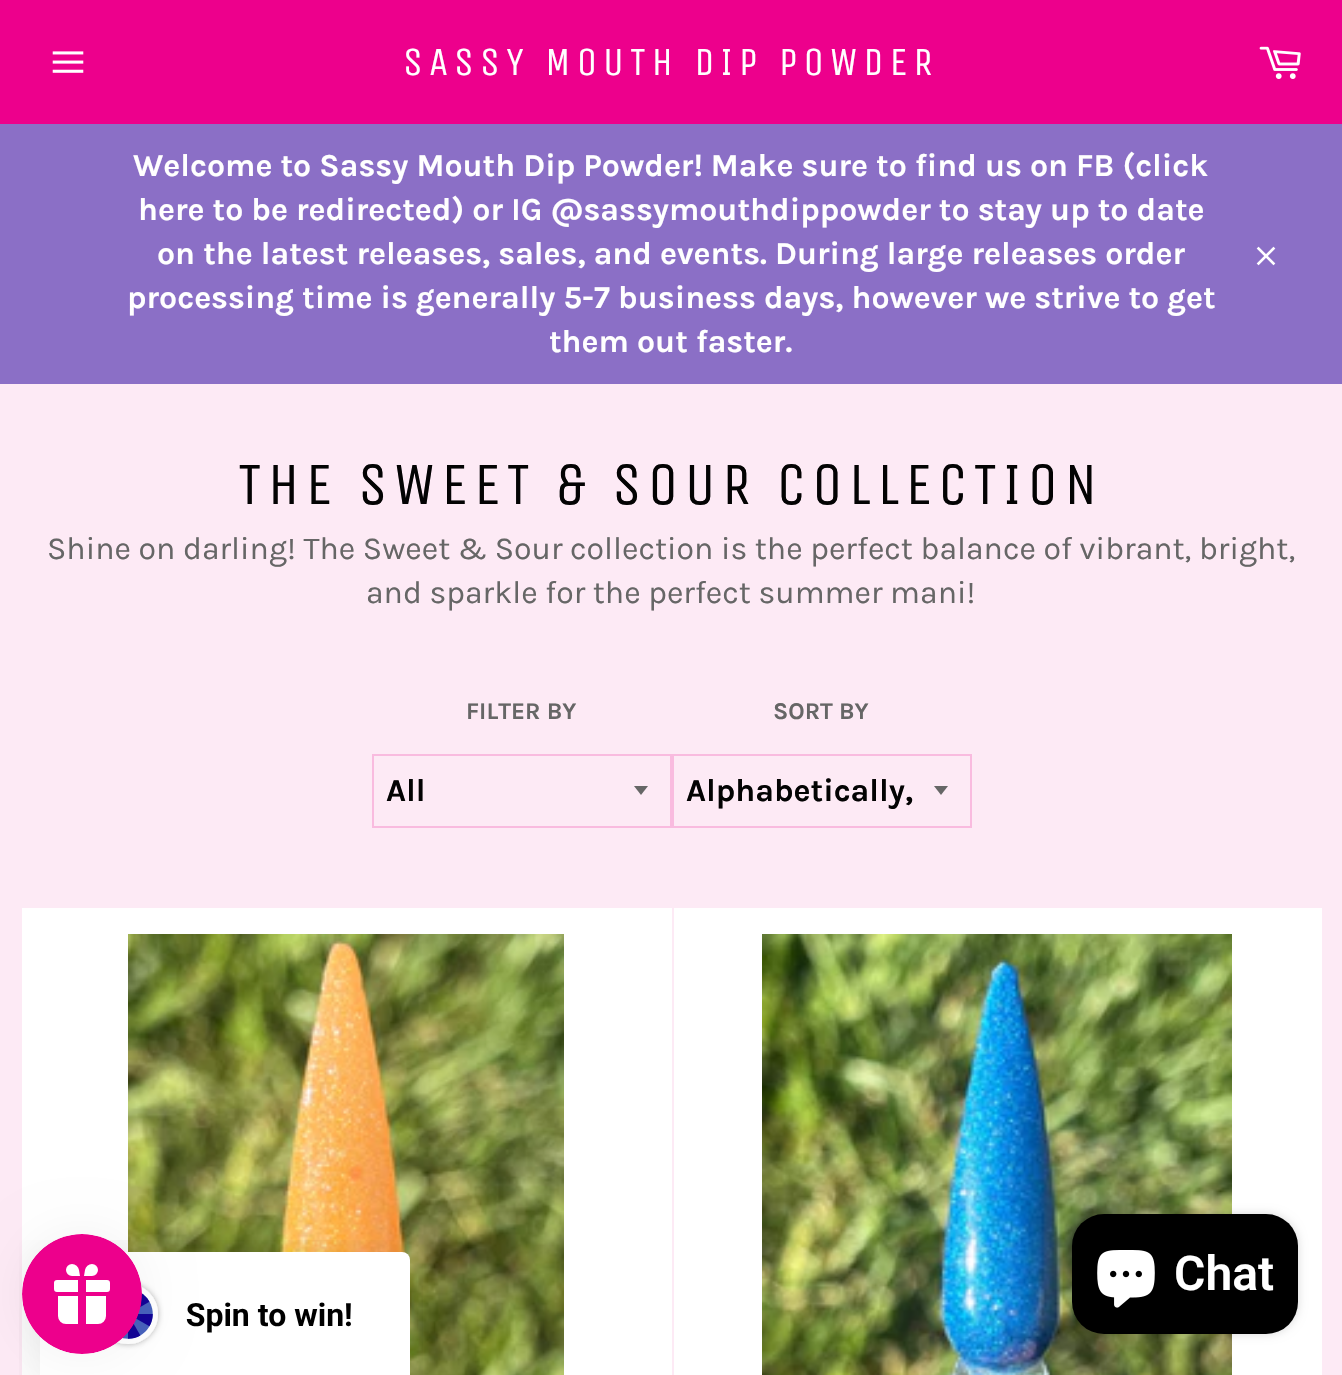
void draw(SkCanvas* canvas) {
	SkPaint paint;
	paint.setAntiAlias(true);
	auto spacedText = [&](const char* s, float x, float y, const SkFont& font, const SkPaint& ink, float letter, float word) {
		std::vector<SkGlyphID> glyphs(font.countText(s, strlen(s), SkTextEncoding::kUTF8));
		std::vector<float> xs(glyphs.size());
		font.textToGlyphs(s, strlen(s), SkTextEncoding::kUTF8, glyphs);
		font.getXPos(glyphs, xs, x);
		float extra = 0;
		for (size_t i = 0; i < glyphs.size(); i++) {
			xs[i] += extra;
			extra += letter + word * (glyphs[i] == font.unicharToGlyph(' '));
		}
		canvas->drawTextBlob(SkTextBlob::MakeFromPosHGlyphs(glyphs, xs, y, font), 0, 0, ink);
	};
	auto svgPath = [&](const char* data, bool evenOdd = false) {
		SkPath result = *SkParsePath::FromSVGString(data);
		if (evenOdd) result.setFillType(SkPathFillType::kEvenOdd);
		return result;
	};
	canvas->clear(0xfffdeaf5);
	paint.setColor(0xffed008c);
	canvas->drawRect(SkRect::MakeXYWH(0, 0, 1342, 124), paint);
	canvas->drawImageRect(SkImages::DeferredFromEncodedData(SkData::MakeFromFileName("img1.png")), SkRect::MakeXYWH(52, 51, 32, 22), SkSamplingOptions());
	SkFont f1(fontMgr->matchFamilyStyle("Unica One", SkFontStyle::Normal()), 40);
	f1.setSubpixel(true);
	paint.setColor(0xffffffff);
	spacedText("SASSY MOUTH DIP POWDER", 403, 75, f1, paint, 6, 0);
	canvas->drawImageRect(SkImages::DeferredFromEncodedData(SkData::MakeFromFileName("img2.png")), SkRect::MakeXYWH(1259, 46, 42, 33), SkSamplingOptions());
	paint.setColor(0xff8b6fc6);
	canvas->drawRect(SkRect::MakeXYWH(0, 124, 1342, 260), paint);
	SkFont f2(fontMgr->matchFamilyStyle("Karla", SkFontStyle::Bold()), 32);
	f2.setSubpixel(true);
	paint.setColor(0xffffffff);
	canvas->drawString("Welcome to Sassy Mouth Dip Powder! Make sure to find us on FB (click", 133, 176, f2, paint);
	canvas->drawString("here to be redirected) or IG @sassymouthdippowder to stay up to date", 138, 220, f2, paint);
	canvas->drawString("on the latest releases, sales, and events. During large releases order", 157, 264, f2, paint);
	canvas->drawString("processing time is generally 5-7 business days, however we strive to get", 127, 308, f2, paint);
	canvas->drawString("them out faster.", 549, 352, f2, paint);
	canvas->drawImageRect(SkImages::DeferredFromEncodedData(SkData::MakeFromFileName("img3.png")), SkRect::MakeXYWH(1256, 246, 20, 20), SkSamplingOptions());
	SkFont f3(fontMgr->matchFamilyStyle("Unica One", SkFontStyle::Normal()), 60);
	f3.setSubpixel(true);
	paint.setColor(0xff030303);
	spacedText("THE SWEET & SOUR COLLECTION", 238, 504, f3, paint, 6, 0);
	SkFont f4(fontMgr->matchFamilyStyle("Karla", SkFontStyle::Normal()), 32);
	f4.setSubpixel(true);
	paint.setColor(0xff666666);
	canvas->drawString("Shine on darling! The Sweet & Sour collection is the perfect balance of vibrant, bright,", 47, 559, f4, paint);
	canvas->drawString("and sparkle for the perfect summer mani!", 366, 603, f4, paint);
	SkFont f5(fontMgr->matchFamilyStyle("Karla", SkFontStyle::Bold()), 24);
	f5.setSubpixel(true);
	canvas->drawString("FILTER BY", 466, 719, f5, paint);
	canvas->drawPath(svgPath("M634 786L641 795L648 786Z"), paint);
	paint.setStroke(true);
	paint.setStrokeWidth(2);
	paint.setColor(0xfff9bbdf);
	canvas->drawRect(SkRect::MakeXYWH(373, 755, 298, 72), paint);
	paint.setStroke(false);
	paint.setColor(0xff030303);
	canvas->drawString("All", 386, 801, f2, paint);
	paint.setColor(0xff666666);
	canvas->drawString("SORT BY", 773, 719, f5, paint);
	canvas->drawPath(svgPath("M934 786L941 795L948 786Z"), paint);
	paint.setStroke(true);
	paint.setColor(0xfff9bbdf);
	canvas->drawRect(SkRect::MakeXYWH(673, 755, 298, 72), paint);
	paint.setStroke(false);
	paint.setColor(0xff030303);
	canvas->drawString("Alphabetically,", 686, 801, f2, paint);
	paint.setColor(0xffffffff);
	canvas->drawRect(SkRect::MakeXYWH(22, 908, 650, 467), paint);
	canvas->drawImageRect(SkImages::DeferredFromEncodedData(SkData::MakeFromFileName("img4.png")), SkRect::MakeXYWH(128, 934, 436, 441), SkSamplingOptions());
	canvas->drawRect(SkRect::MakeXYWH(674, 908, 648, 467), paint);
	canvas->drawImageRect(SkImages::DeferredFromEncodedData(SkData::MakeFromFileName("img5.png")), SkRect::MakeXYWH(762, 934, 470, 441), SkSamplingOptions());
	canvas->drawImageRect(SkImages::DeferredFromEncodedData(SkData::MakeFromFileName("img7.png")), SkRect::MakeXYWH(19, 1240, 404, 135), SkSamplingOptions());
	paint.setColor(0x0d000000);
	paint.setMaskFilter(SkMaskFilter::MakeBlur(kNormal_SkBlurStyle, 25));
	canvas->drawRoundRect(SkRect::MakeXYWH(22, 1234, 120, 120), 60, 60, paint);
	paint.setMaskFilter(nullptr);
	canvas->drawImageRect(SkImages::DeferredFromEncodedData(SkData::MakeFromFileName("img6.png")), SkRect::MakeXYWH(22, 1234, 120, 120), SkSamplingOptions());
	paint.setColor(0x26000000);
	paint.setMaskFilter(SkMaskFilter::MakeBlur(kNormal_SkBlurStyle, 5));
	canvas->drawRoundRect(SkRect::MakeXYWH(1072, 1214, 226, 120), 32, 32, paint);
	paint.setMaskFilter(nullptr);
	paint.setColor(0xff000000);
	canvas->drawRoundRect(SkRect::MakeXYWH(1072, 1214, 226, 120), 32, 32, paint);
	canvas->drawImageRect(SkImages::DeferredFromEncodedData(SkData::MakeFromFileName("img8.png")), SkRect::MakeXYWH(1097, 1250, 58, 58), SkSamplingOptions());
	SkFont f6(fontMgr->matchFamilyStyle("Roboto", SkFontStyle(600, SkFontStyle::kNormal_Width, SkFontStyle::kUpright_Slant)), 48);
	f6.setSubpixel(true);
	paint.setColor(0xffffffff);
	canvas->drawString("Chat", 1174, 1290, f6, paint);
}
